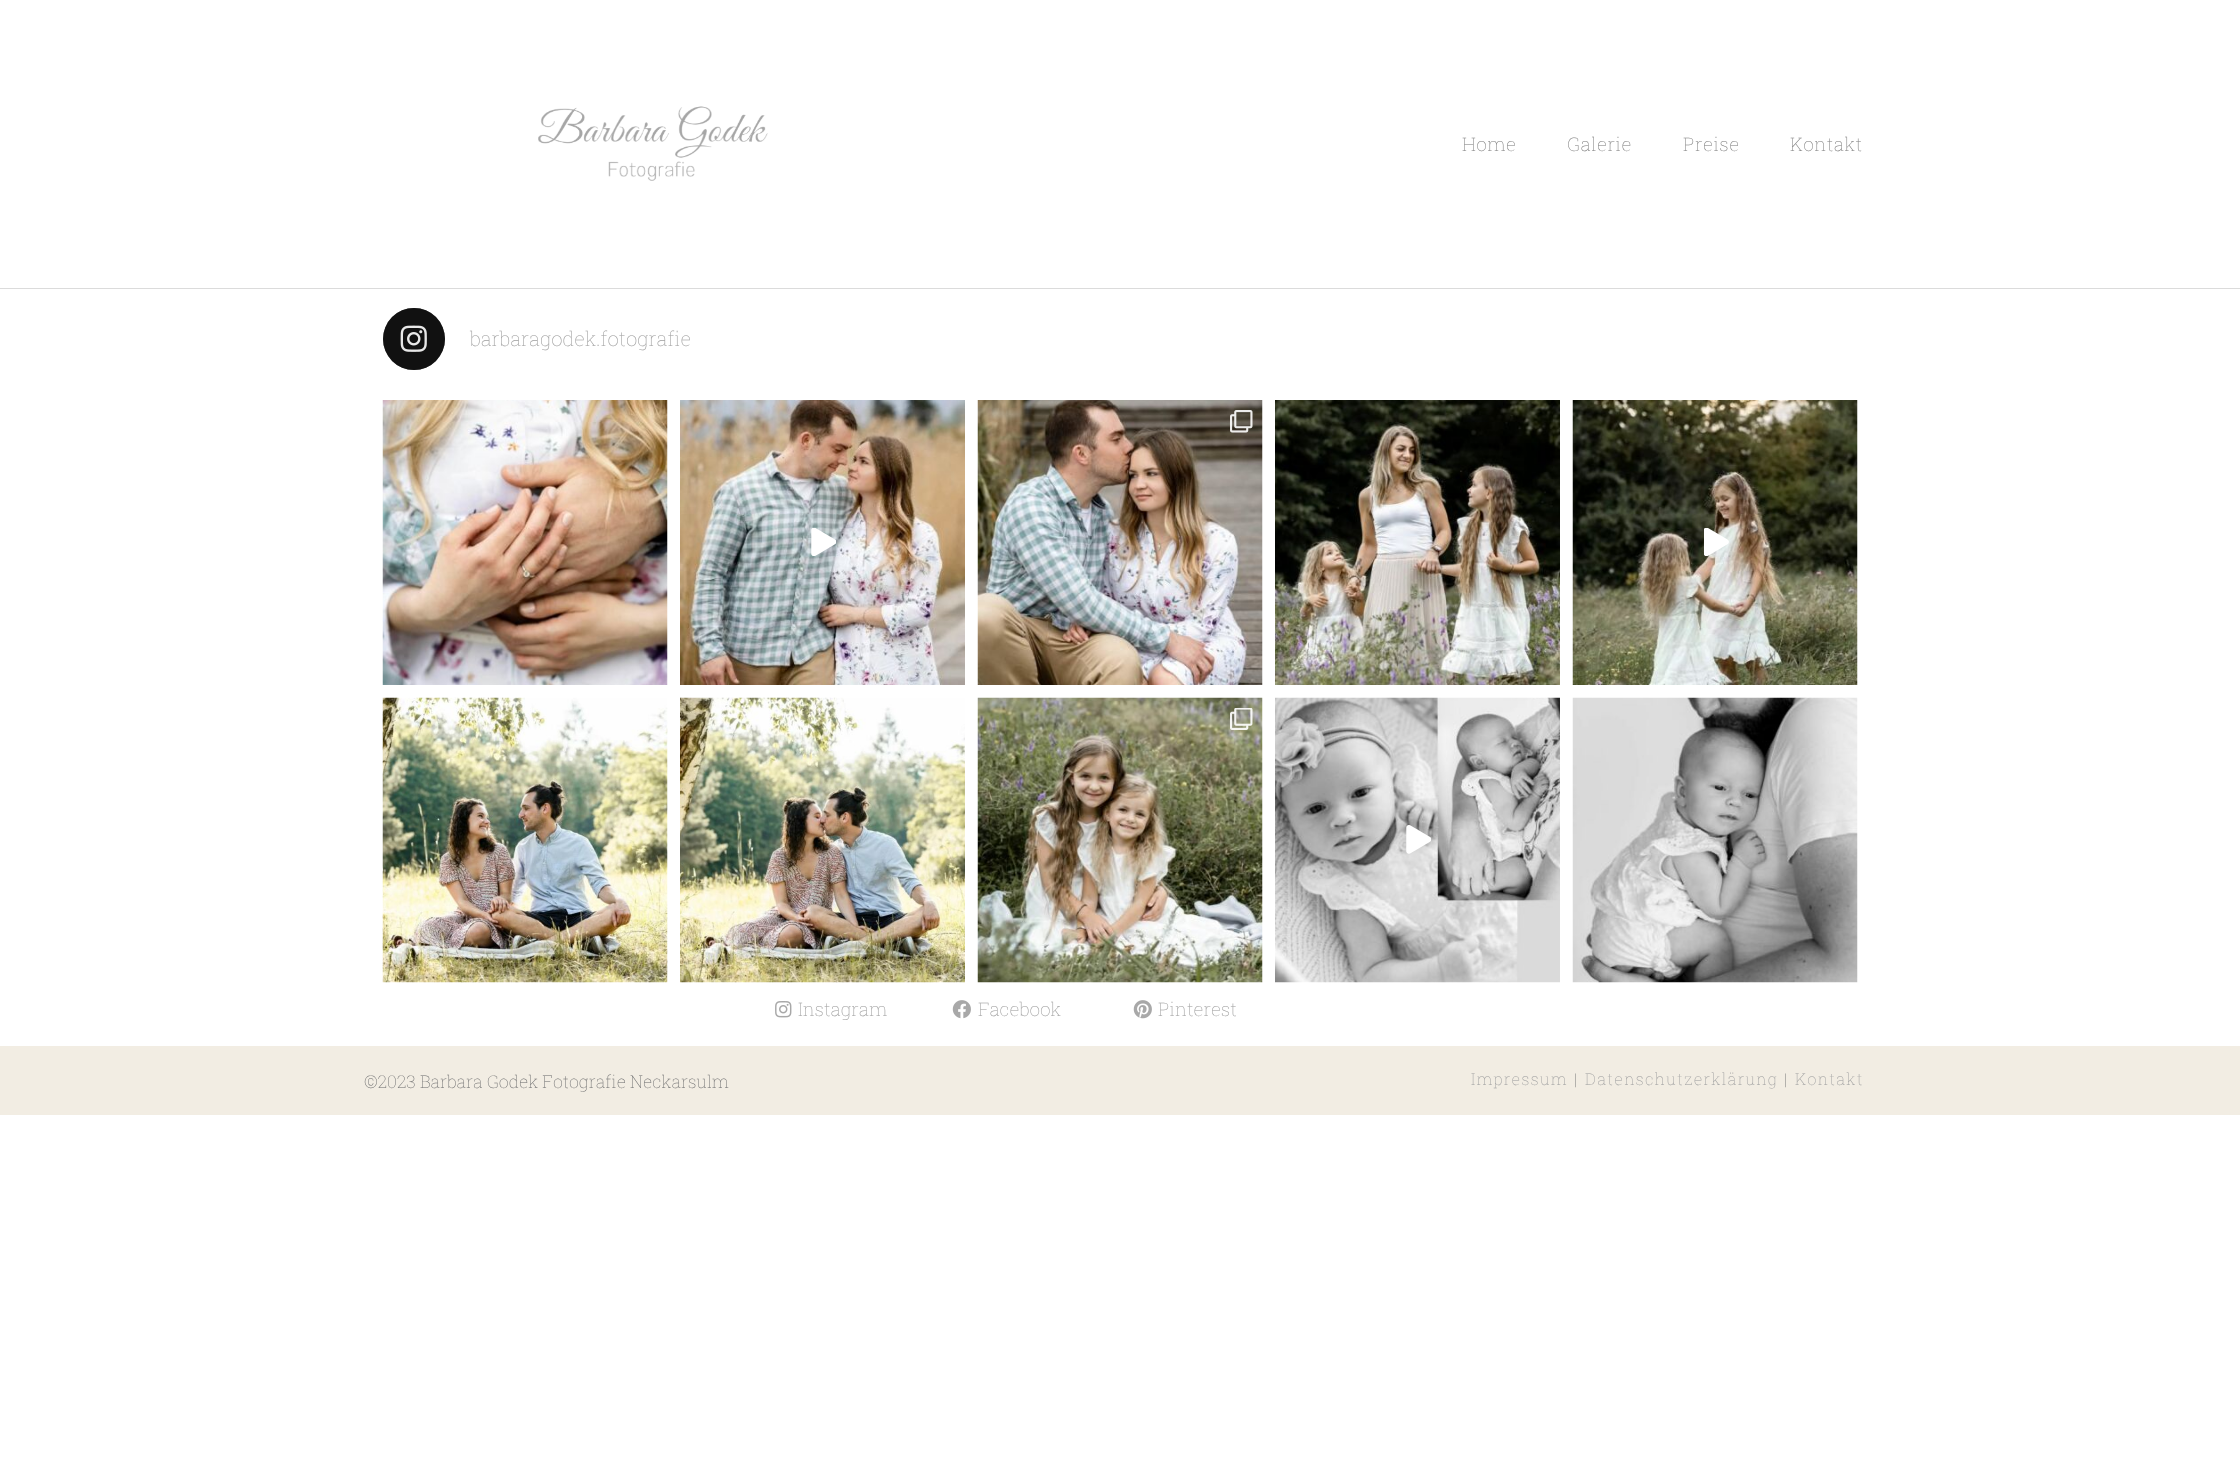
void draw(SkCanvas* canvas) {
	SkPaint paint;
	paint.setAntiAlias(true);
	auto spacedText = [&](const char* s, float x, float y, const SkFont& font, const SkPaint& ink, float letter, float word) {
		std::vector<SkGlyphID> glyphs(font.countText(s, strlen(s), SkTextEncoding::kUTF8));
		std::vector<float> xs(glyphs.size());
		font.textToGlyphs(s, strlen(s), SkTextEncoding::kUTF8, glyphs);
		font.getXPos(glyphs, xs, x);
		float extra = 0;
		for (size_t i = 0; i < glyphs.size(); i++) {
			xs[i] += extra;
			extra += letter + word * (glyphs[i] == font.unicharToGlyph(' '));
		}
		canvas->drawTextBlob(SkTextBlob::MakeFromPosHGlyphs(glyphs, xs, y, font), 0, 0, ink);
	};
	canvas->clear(0xffffffff);
	paint.setColor(0xffdbdbdb);
	canvas->drawRect(SkRect::MakeXYWH(0, 288, 2240, 1), paint);
	canvas->drawImageRect(SkImages::DeferredFromEncodedData(SkData::MakeFromFileName("img1.png")), SkRect::MakeXYWH(538, 106, 230, 75), SkSamplingOptions());
	SkFont f1(fontMgr->matchFamilyStyle("Roboto Slab", SkFontStyle(100, SkFontStyle::kNormal_Width, SkFontStyle::kUpright_Slant)), 18.75);
	f1.setSubpixel(true);
	paint.setColor(0xff878787);
	spacedText("Home", 1462, 151, f1, paint, 0.5, 0);
	spacedText("Galerie", 1567, 151, f1, paint, 0.5, 0);
	spacedText("Preise", 1683, 151, f1, paint, 0.5, 0);
	spacedText("Kontakt", 1790, 151, f1, paint, 0.5, 0);
	paint.setColor(0xff333333);
	canvas->drawCircle(414, 339, 31, paint);
	paint.setColor(0xad000000);
	canvas->drawCircle(414, 339, 31, paint);
	canvas->drawImageRect(SkImages::DeferredFromEncodedData(SkData::MakeFromFileName("img2.png")), SkRect::MakeXYWH(400, 325, 27, 27), SkSamplingOptions());
	SkFont f2(fontMgr->matchFamilyStyle("Roboto Slab", SkFontStyle(100, SkFontStyle::kNormal_Width, SkFontStyle::kUpright_Slant)), 20);
	f2.setSubpixel(true);
	paint.setColor(0xffa3a3a3);
	canvas->drawString("barbaragodek.fotografie", 470, 346, f2, paint);
	canvas->drawImageRect(SkImages::DeferredFromEncodedData(SkData::MakeFromFileName("img3.png")), SkRect::MakeXYWH(382, 400, 286, 285), SkSamplingOptions());
	canvas->drawImageRect(SkImages::DeferredFromEncodedData(SkData::MakeFromFileName("img4.png")), SkRect::MakeXYWH(680, 400, 285, 285), SkSamplingOptions());
	canvas->drawImageRect(SkImages::DeferredFromEncodedData(SkData::MakeFromFileName("img5.png")), SkRect::MakeXYWH(811, 528, 25, 28), SkSamplingOptions());
	canvas->drawImageRect(SkImages::DeferredFromEncodedData(SkData::MakeFromFileName("img6.png")), SkRect::MakeXYWH(977, 400, 286, 285), SkSamplingOptions());
	canvas->drawImageRect(SkImages::DeferredFromEncodedData(SkData::MakeFromFileName("img7.png")), SkRect::MakeXYWH(1230, 410, 23, 23), SkSamplingOptions());
	canvas->drawImageRect(SkImages::DeferredFromEncodedData(SkData::MakeFromFileName("img8.png")), SkRect::MakeXYWH(1275, 400, 285, 285), SkSamplingOptions());
	canvas->drawImageRect(SkImages::DeferredFromEncodedData(SkData::MakeFromFileName("img9.png")), SkRect::MakeXYWH(1572, 400, 286, 285), SkSamplingOptions());
	canvas->drawImageRect(SkImages::DeferredFromEncodedData(SkData::MakeFromFileName("img10.png")), SkRect::MakeXYWH(1704, 528, 25, 28), SkSamplingOptions());
	canvas->drawImageRect(SkImages::DeferredFromEncodedData(SkData::MakeFromFileName("img11.png")), SkRect::MakeXYWH(382, 697, 286, 286), SkSamplingOptions());
	canvas->drawImageRect(SkImages::DeferredFromEncodedData(SkData::MakeFromFileName("img12.png")), SkRect::MakeXYWH(680, 697, 285, 286), SkSamplingOptions());
	canvas->drawImageRect(SkImages::DeferredFromEncodedData(SkData::MakeFromFileName("img13.png")), SkRect::MakeXYWH(977, 697, 286, 286), SkSamplingOptions());
	canvas->drawImageRect(SkImages::DeferredFromEncodedData(SkData::MakeFromFileName("img14.png")), SkRect::MakeXYWH(1230, 708, 23, 22), SkSamplingOptions());
	canvas->drawImageRect(SkImages::DeferredFromEncodedData(SkData::MakeFromFileName("img15.png")), SkRect::MakeXYWH(1275, 697, 285, 286), SkSamplingOptions());
	canvas->drawImageRect(SkImages::DeferredFromEncodedData(SkData::MakeFromFileName("img16.png")), SkRect::MakeXYWH(1406, 825, 25, 29), SkSamplingOptions());
	canvas->drawImageRect(SkImages::DeferredFromEncodedData(SkData::MakeFromFileName("img17.png")), SkRect::MakeXYWH(1572, 697, 286, 286), SkSamplingOptions());
	canvas->drawImageRect(SkImages::DeferredFromEncodedData(SkData::MakeFromFileName("img18.png")), SkRect::MakeXYWH(775, 1001, 17, 17), SkSamplingOptions());
	canvas->drawString("Instagram", 798, 1016, f1, paint);
	canvas->drawImageRect(SkImages::DeferredFromEncodedData(SkData::MakeFromFileName("img19.png")), SkRect::MakeXYWH(952, 1000, 19, 19), SkSamplingOptions());
	canvas->drawString("Facebook", 978, 1016, f1, paint);
	canvas->drawImageRect(SkImages::DeferredFromEncodedData(SkData::MakeFromFileName("img20.png")), SkRect::MakeXYWH(1133, 1000, 19, 19), SkSamplingOptions());
	canvas->drawString("Pinterest", 1158, 1016, f1, paint);
	paint.setColor(0xfff2ede3);
	canvas->drawRect(SkRect::MakeXYWH(0, 1046, 2240, 69), paint);
	SkFont f3(fontMgr->matchFamilyStyle("Roboto Slab", SkFontStyle(100, SkFontStyle::kNormal_Width, SkFontStyle::kUpright_Slant)), 17.5);
	f3.setSubpixel(true);
	paint.setColor(0xff777777);
	canvas->drawString("©2023 Barbara Godek Fotografie Neckarsulm", 364, 1088, f3, paint);
	SkFont f4(fontMgr->matchFamilyStyle("Roboto Slab", SkFontStyle(100, SkFontStyle::kNormal_Width, SkFontStyle::kUpright_Slant)), 16.25);
	f4.setSubpixel(true);
	paint.setColor(0xffa3a3a3);
	spacedText("Impressum", 1471, 1085, f4, paint, 1.25, 0);
	paint.setColor(0xff777777);
	spacedText("|", 1574, 1085, f4, paint, 1.25, 0);
	paint.setColor(0xffa3a3a3);
	spacedText("Datenschutzerklärung", 1585, 1085, f4, paint, 1.25, 0);
	paint.setColor(0xff777777);
	spacedText("|", 1784, 1085, f4, paint, 1.25, 0);
	paint.setColor(0xffa3a3a3);
	spacedText("Kontakt", 1795, 1085, f4, paint, 1.25, 0);
}
